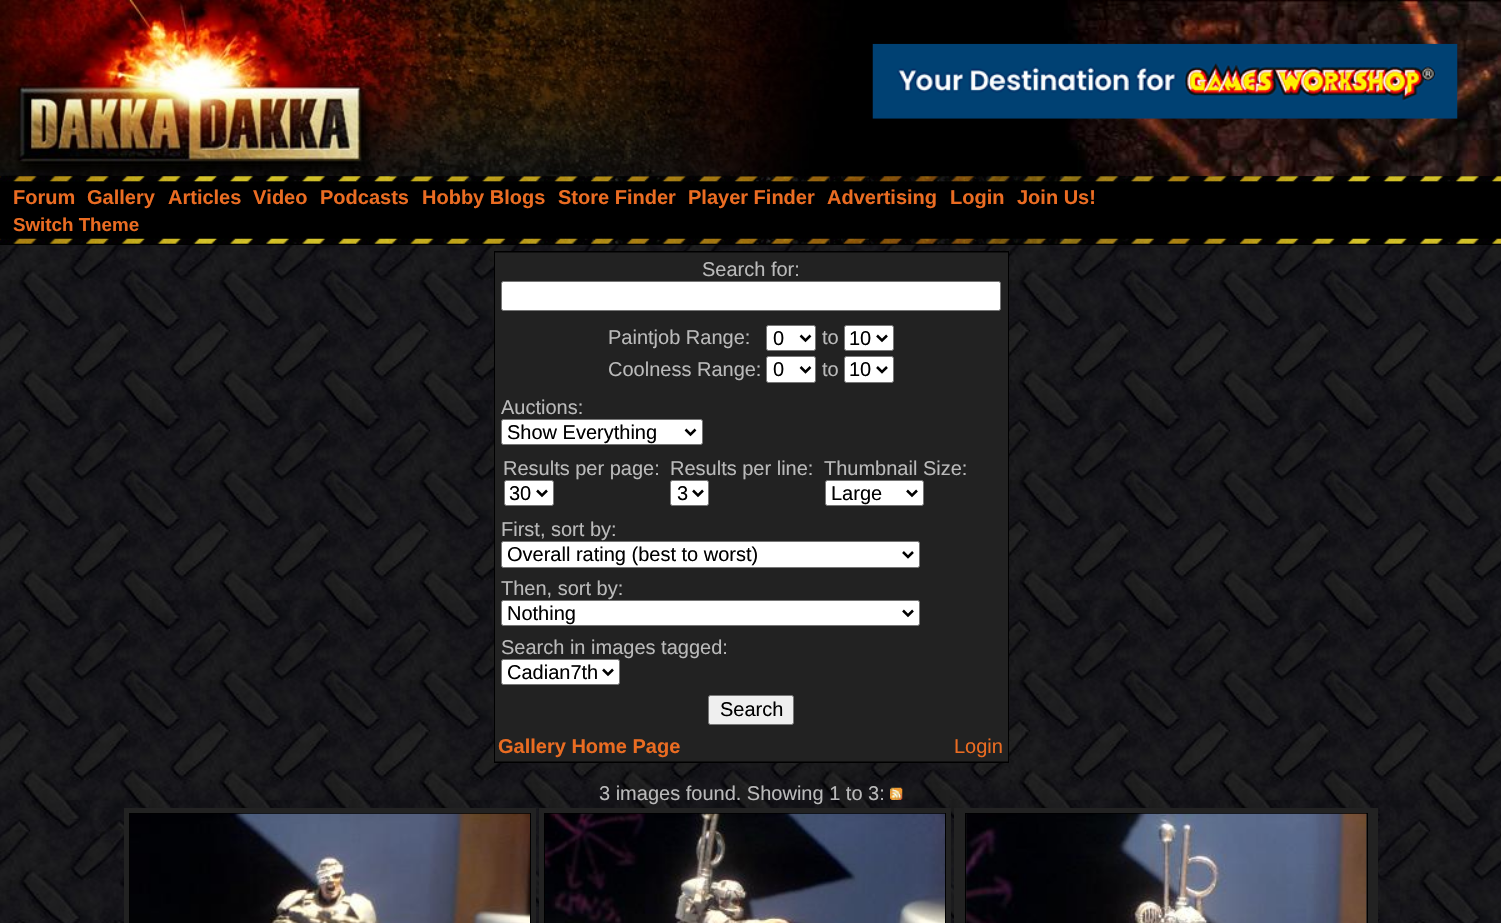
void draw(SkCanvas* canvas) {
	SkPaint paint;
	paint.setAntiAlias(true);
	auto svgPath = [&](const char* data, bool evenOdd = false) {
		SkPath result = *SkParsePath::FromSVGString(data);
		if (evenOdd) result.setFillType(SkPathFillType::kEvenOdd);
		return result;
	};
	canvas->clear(0xffffffff);
	canvas->drawImageRect(SkImages::DeferredFromEncodedData(SkData::MakeFromFileName("img1.png")), SkRect::MakeXYWH(0, 245, 1501, 678), SkSamplingOptions());
	paint.setColor(0xff000000);
	canvas->drawRect(SkRect::MakeXYWH(869, 0, 195, 176), paint);
	canvas->drawRect(SkRect::MakeXYWH(0, 176, 1501, 63), paint);
	canvas->drawImageRect(SkImages::DeferredFromEncodedData(SkData::MakeFromFileName("img6.png")), SkRect::MakeXYWH(0, 176, 1501, 6), SkSamplingOptions());
	canvas->drawImageRect(SkImages::DeferredFromEncodedData(SkData::MakeFromFileName("img2.png")), SkRect::MakeXYWH(390, 0, 479, 177), SkSamplingOptions());
	canvas->drawImageRect(SkImages::DeferredFromEncodedData(SkData::MakeFromFileName("img3.png")), SkRect::MakeXYWH(0, 0, 390, 176), SkSamplingOptions());
	canvas->drawImageRect(SkImages::DeferredFromEncodedData(SkData::MakeFromFileName("img4.png")), SkRect::MakeXYWH(1064, 0, 437, 177), SkSamplingOptions());
	canvas->drawImageRect(SkImages::DeferredFromEncodedData(SkData::MakeFromFileName("img5.png")), SkRect::MakeXYWH(872, 43, 586, 76), SkSamplingOptions());
	SkFont f1(fontMgr->matchFamilyStyle("Liberation Sans", SkFontStyle::Bold()), 20);
	f1.setSubpixel(true);
	paint.setColor(0xffea6c22);
	canvas->drawString("Forum", 13, 204, f1, paint);
	canvas->drawString("Gallery", 87, 204, f1, paint);
	canvas->drawString("Articles", 168, 204, f1, paint);
	canvas->drawString("Video", 253, 204, f1, paint);
	canvas->drawString("Podcasts", 320, 204, f1, paint);
	canvas->drawString("Hobby Blogs", 422, 204, f1, paint);
	canvas->drawString("Store Finder", 558, 204, f1, paint);
	canvas->drawString("Player Finder", 688, 204, f1, paint);
	canvas->drawString("Advertising", 827, 204, f1, paint);
	canvas->drawString("Login", 950, 204, f1, paint);
	canvas->drawString("Join Us!", 1017, 204, f1, paint);
	SkFont f2(fontMgr->matchFamilyStyle("Liberation Sans", SkFontStyle::Bold()), 18.75);
	f2.setSubpixel(true);
	canvas->drawString("Switch Theme", 13, 231, f2, paint);
	paint.setColor(0xff000000);
	canvas->drawRect(SkRect::MakeXYWH(0, 244, 1501, 1), paint);
	canvas->drawImageRect(SkImages::DeferredFromEncodedData(SkData::MakeFromFileName("img7.png")), SkRect::MakeXYWH(0, 238, 1501, 6), SkSamplingOptions());
	paint.setColor(0xff111111);
	canvas->drawRect(SkRect::MakeXYWH(494.5, 251.5, 514, 511), paint);
	paint.setStroke(true);
	paint.setStrokeWidth(1);
	paint.setColor(0xff000000);
	canvas->drawRect(SkRect::MakeXYWH(494.5, 251.5, 514, 511), paint);
	paint.setStroke(false);
	paint.setColor(0xff222222);
	canvas->drawRect(SkRect::MakeXYWH(495, 253, 513, 508), paint);
	SkFont f3(fontMgr->matchFamilyStyle("Liberation Sans", SkFontStyle::Normal()), 20);
	f3.setSubpixel(true);
	paint.setColor(0xffbababa);
	canvas->drawString("Search for:", 702, 276, f3, paint);
	paint.setColor(0xffffffff);
	canvas->drawRoundRect(SkRect::MakeXYWH(501.5, 281.5, 499, 29), 2, 2, paint);
	paint.setStroke(true);
	paint.setColor(0xff767676);
	canvas->drawRoundRect(SkRect::MakeXYWH(501.5, 281.5, 499, 29), 2, 2, paint);
	paint.setStroke(false);
	paint.setColor(0xffbababa);
	canvas->drawString("Paintjob Range:", 608, 344, f3, paint);
	paint.setColor(0xffffffff);
	canvas->drawRoundRect(SkRect::MakeXYWH(766.5, 325.5, 49, 25), 2, 2, paint);
	paint.setStroke(true);
	paint.setColor(0xff767676);
	canvas->drawRoundRect(SkRect::MakeXYWH(766.5, 325.5, 49, 25), 2, 2, paint);
	paint.setStrokeWidth(2.5);
	paint.setColor(0xff000000);
	canvas->drawPath(svgPath("M800.5 335.5L805.5 340.5L810.5 335.5"), paint);
	paint.setStroke(false);
	canvas->drawString("0", 773, 345, f3, paint);
	paint.setColor(0xffbababa);
	canvas->drawString("to", 822, 344, f3, paint);
	paint.setColor(0xffffffff);
	canvas->drawRoundRect(SkRect::MakeXYWH(844.5, 325.5, 49, 25), 2, 2, paint);
	paint.setStroke(true);
	paint.setStrokeWidth(1);
	paint.setColor(0xff767676);
	canvas->drawRoundRect(SkRect::MakeXYWH(844.5, 325.5, 49, 25), 2, 2, paint);
	paint.setStrokeWidth(2.5);
	paint.setColor(0xff000000);
	canvas->drawPath(svgPath("M877 335.5L882 340.5L887 335.5"), paint);
	paint.setStroke(false);
	canvas->drawString("10", 849, 345, f3, paint);
	paint.setColor(0xffbababa);
	canvas->drawString("Coolness Range:", 608, 376, f3, paint);
	paint.setColor(0xffffffff);
	canvas->drawRoundRect(SkRect::MakeXYWH(766.5, 356.5, 49, 26), 2, 2, paint);
	paint.setStroke(true);
	paint.setStrokeWidth(1);
	paint.setColor(0xff767676);
	canvas->drawRoundRect(SkRect::MakeXYWH(766.5, 356.5, 49, 26), 2, 2, paint);
	paint.setStrokeWidth(2.5);
	paint.setColor(0xff000000);
	canvas->drawPath(svgPath("M800.5 367L805.5 372L810.5 367"), paint);
	paint.setStroke(false);
	canvas->drawString("0", 773, 376, f3, paint);
	paint.setColor(0xffbababa);
	canvas->drawString("to", 822, 376, f3, paint);
	paint.setColor(0xffffffff);
	canvas->drawRoundRect(SkRect::MakeXYWH(844.5, 356.5, 49, 26), 2, 2, paint);
	paint.setStroke(true);
	paint.setStrokeWidth(1);
	paint.setColor(0xff767676);
	canvas->drawRoundRect(SkRect::MakeXYWH(844.5, 356.5, 49, 26), 2, 2, paint);
	paint.setStrokeWidth(2.5);
	paint.setColor(0xff000000);
	canvas->drawPath(svgPath("M877 367L882 372L887 367"), paint);
	paint.setStroke(false);
	canvas->drawString("10", 849, 376, f3, paint);
	paint.setColor(0xffbababa);
	canvas->drawString("Auctions:", 501, 414, f3, paint);
	paint.setColor(0xffffffff);
	canvas->drawRoundRect(SkRect::MakeXYWH(501.5, 419.5, 201, 25), 2, 2, paint);
	paint.setStroke(true);
	paint.setStrokeWidth(1);
	paint.setColor(0xff767676);
	canvas->drawRoundRect(SkRect::MakeXYWH(501.5, 419.5, 201, 25), 2, 2, paint);
	paint.setStrokeWidth(2.5);
	paint.setColor(0xff000000);
	canvas->drawPath(svgPath("M685.5 429.5L690.5 434.5L695.5 429.5"), paint);
	paint.setStroke(false);
	canvas->drawString("Show Everything", 507, 439, f3, paint);
	paint.setColor(0xffbababa);
	canvas->drawString("Results per page:", 503, 475, f3, paint);
	paint.setColor(0xffffffff);
	canvas->drawRoundRect(SkRect::MakeXYWH(504.5, 480.5, 49, 25), 2, 2, paint);
	paint.setStroke(true);
	paint.setStrokeWidth(1);
	paint.setColor(0xff767676);
	canvas->drawRoundRect(SkRect::MakeXYWH(504.5, 480.5, 49, 25), 2, 2, paint);
	paint.setStrokeWidth(2.5);
	paint.setColor(0xff000000);
	canvas->drawPath(svgPath("M537 490.5L542 495.5L547 490.5"), paint);
	paint.setStroke(false);
	canvas->drawString("30", 509, 500, f3, paint);
	paint.setColor(0xffbababa);
	canvas->drawString("Results per line:", 670, 475, f3, paint);
	paint.setColor(0xffffffff);
	canvas->drawRoundRect(SkRect::MakeXYWH(670.5, 480.5, 38, 25), 2, 2, paint);
	paint.setStroke(true);
	paint.setStrokeWidth(1);
	paint.setColor(0xff767676);
	canvas->drawRoundRect(SkRect::MakeXYWH(670.5, 480.5, 38, 25), 2, 2, paint);
	paint.setStrokeWidth(2.5);
	paint.setColor(0xff000000);
	canvas->drawPath(svgPath("M693 490.5L698 495.5L703 490.5"), paint);
	paint.setStroke(false);
	canvas->drawString("3", 677, 500, f3, paint);
	paint.setColor(0xffbababa);
	canvas->drawString("Thumbnail Size:", 824, 475, f3, paint);
	paint.setColor(0xffffffff);
	canvas->drawRoundRect(SkRect::MakeXYWH(825.5, 480.5, 98, 25), 2, 2, paint);
	paint.setStroke(true);
	paint.setStrokeWidth(1);
	paint.setColor(0xff767676);
	canvas->drawRoundRect(SkRect::MakeXYWH(825.5, 480.5, 98, 25), 2, 2, paint);
	paint.setStrokeWidth(2.5);
	paint.setColor(0xff000000);
	canvas->drawPath(svgPath("M907 490.5L912 495.5L917 490.5"), paint);
	paint.setStroke(false);
	canvas->drawString("Large", 831, 500, f3, paint);
	paint.setColor(0xffbababa);
	canvas->drawString("First, sort by:", 501, 536, f3, paint);
	paint.setColor(0xffffffff);
	canvas->drawRoundRect(SkRect::MakeXYWH(501.5, 541.5, 418, 26), 2, 2, paint);
	paint.setStroke(true);
	paint.setStrokeWidth(1);
	paint.setColor(0xff767676);
	canvas->drawRoundRect(SkRect::MakeXYWH(501.5, 541.5, 418, 26), 2, 2, paint);
	paint.setStrokeWidth(2.5);
	paint.setColor(0xff000000);
	canvas->drawPath(svgPath("M903 552L908 557L913 552"), paint);
	paint.setStroke(false);
	canvas->drawString("Overall rating (best to worst)", 507, 561, f3, paint);
	paint.setColor(0xffbababa);
	canvas->drawString("Then, sort by:", 501, 595, f3, paint);
	paint.setColor(0xffffffff);
	canvas->drawRoundRect(SkRect::MakeXYWH(501.5, 600.5, 418, 25), 2, 2, paint);
	paint.setStroke(true);
	paint.setStrokeWidth(1);
	paint.setColor(0xff767676);
	canvas->drawRoundRect(SkRect::MakeXYWH(501.5, 600.5, 418, 25), 2, 2, paint);
	paint.setStrokeWidth(2.5);
	paint.setColor(0xff000000);
	canvas->drawPath(svgPath("M903 610.5L908 615.5L913 610.5"), paint);
	paint.setStroke(false);
	canvas->drawString("Nothing", 507, 620, f3, paint);
	paint.setColor(0xffbababa);
	canvas->drawString("Search in images tagged:", 501, 654, f3, paint);
	paint.setColor(0xffffffff);
	canvas->drawRoundRect(SkRect::MakeXYWH(501.5, 659.5, 118, 25), 2, 2, paint);
	paint.setStroke(true);
	paint.setStrokeWidth(1);
	paint.setColor(0xff767676);
	canvas->drawRoundRect(SkRect::MakeXYWH(501.5, 659.5, 118, 25), 2, 2, paint);
	paint.setStrokeWidth(2.5);
	paint.setColor(0xff000000);
	canvas->drawPath(svgPath("M603 669.5L608 674.5L613 669.5"), paint);
	paint.setStroke(false);
	canvas->drawString("Cadian7th", 507, 679, f3, paint);
	paint.setColor(0xffefefef);
	canvas->drawRoundRect(SkRect::MakeXYWH(708.5, 695.5, 85, 29), 2, 2, paint);
	paint.setStroke(true);
	paint.setStrokeWidth(1);
	paint.setColor(0xff767676);
	canvas->drawRoundRect(SkRect::MakeXYWH(708.5, 695.5, 85, 29), 2, 2, paint);
	paint.setStroke(false);
	paint.setColor(0xff000000);
	canvas->drawString("Search", 720, 716, f3, paint);
	paint.setColor(0xffea6c22);
	canvas->drawString("Gallery Home Page", 498, 753, f1, paint);
	canvas->drawString("Login", 954, 753, f3, paint);
	paint.setColor(0xffbababa);
	canvas->drawString("3 images found. Showing 1 to 3:", 599, 800, f3, paint);
	canvas->drawImageRect(SkImages::DeferredFromEncodedData(SkData::MakeFromFileName("img8.png")), SkRect::MakeXYWH(890, 787, 13, 13), SkSamplingOptions());
	paint.setColor(0xff222222);
	canvas->drawRect(SkRect::MakeXYWH(124, 808, 412, 115), paint);
	paint.setStroke(true);
	paint.setColor(0xff000000);
	canvas->drawRect(SkRect::MakeXYWH(129.5, 813.5, 401, 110), paint);
	canvas->drawImageRect(SkImages::DeferredFromEncodedData(SkData::MakeFromFileName("img9.png")), SkRect::MakeXYWH(130, 813, 400, 110), SkSamplingOptions());
	paint.setStroke(false);
	paint.setColor(0xff222222);
	canvas->drawRect(SkRect::MakeXYWH(539, 808, 412, 115), paint);
	paint.setStroke(true);
	paint.setColor(0xff000000);
	canvas->drawRect(SkRect::MakeXYWH(544.5, 813.5, 401, 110), paint);
	canvas->drawImageRect(SkImages::DeferredFromEncodedData(SkData::MakeFromFileName("img10.png")), SkRect::MakeXYWH(545, 813, 400, 110), SkSamplingOptions());
	paint.setStroke(false);
	paint.setColor(0xff222222);
	canvas->drawRect(SkRect::MakeXYWH(954, 808, 424, 115), paint);
	paint.setStroke(true);
	paint.setColor(0xff000000);
	canvas->drawRect(SkRect::MakeXYWH(965.5, 813.5, 402, 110), paint);
	canvas->drawImageRect(SkImages::DeferredFromEncodedData(SkData::MakeFromFileName("img11.png")), SkRect::MakeXYWH(966, 813, 401, 110), SkSamplingOptions());
}
